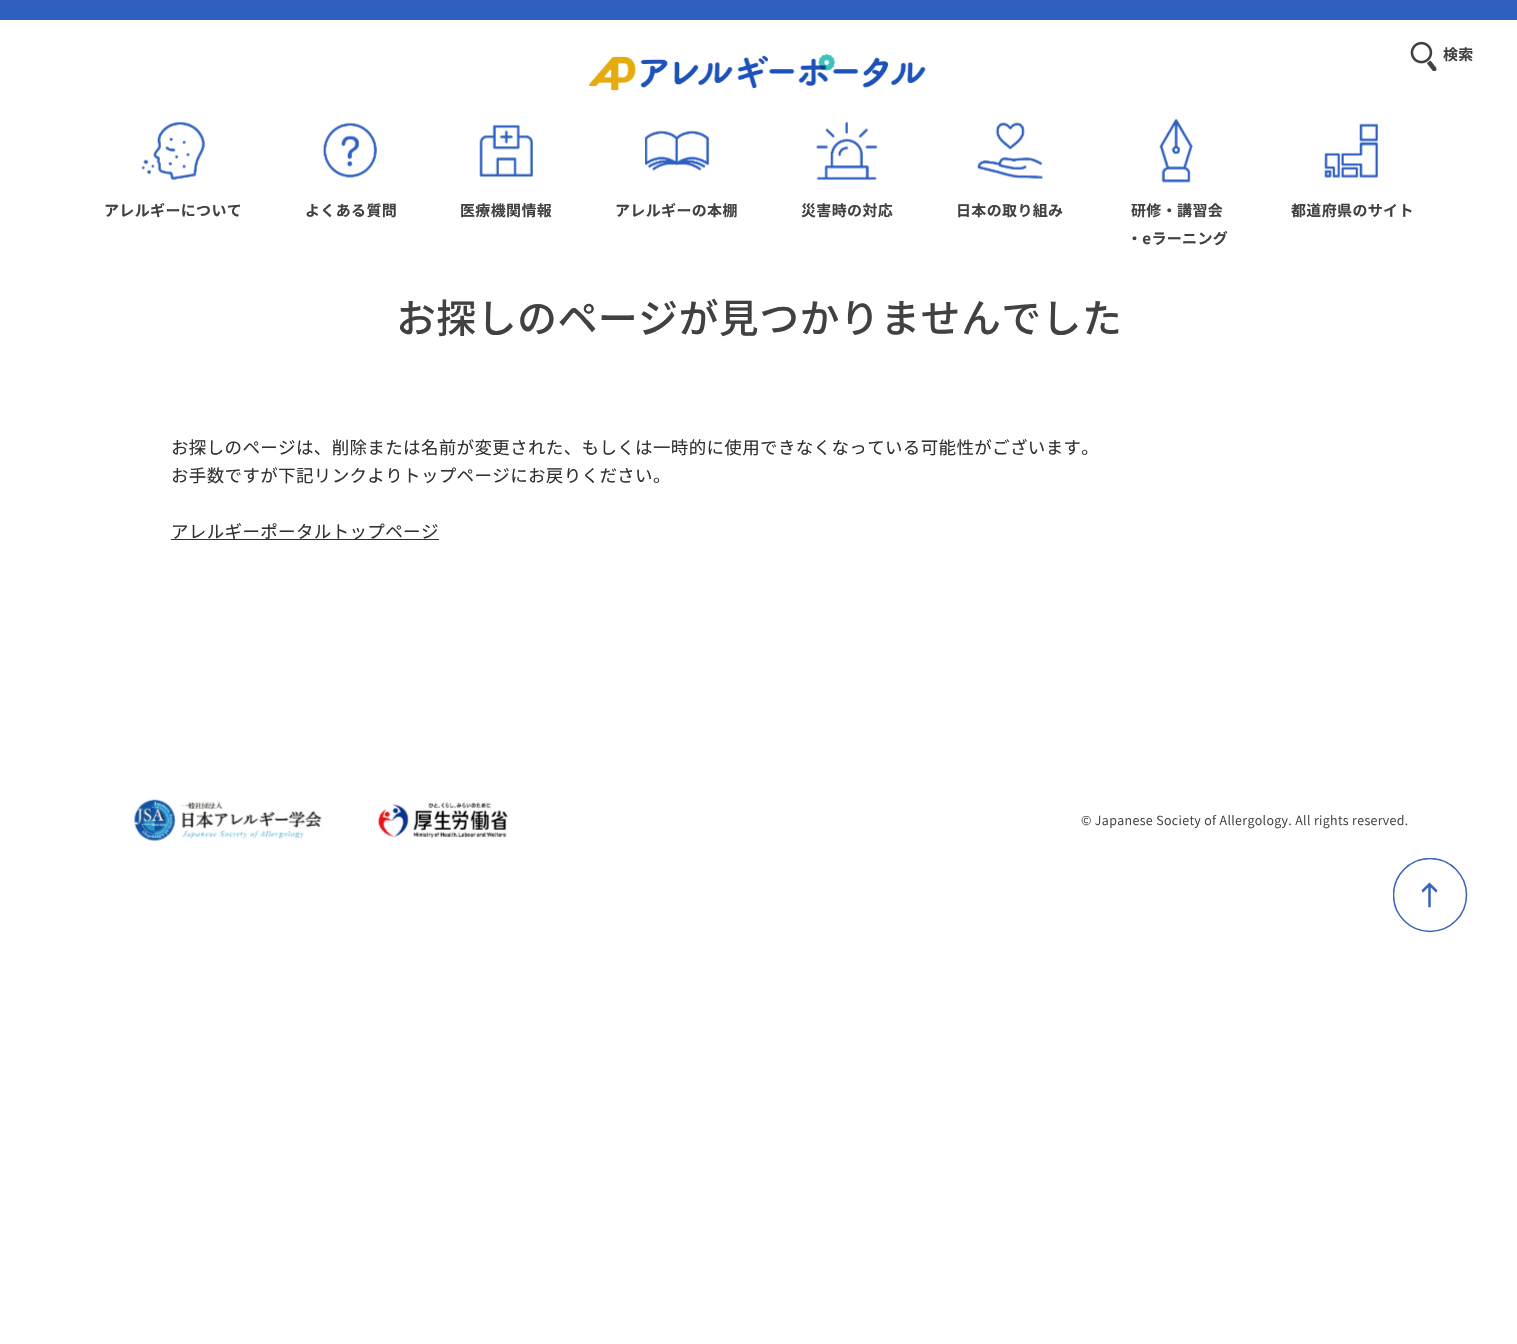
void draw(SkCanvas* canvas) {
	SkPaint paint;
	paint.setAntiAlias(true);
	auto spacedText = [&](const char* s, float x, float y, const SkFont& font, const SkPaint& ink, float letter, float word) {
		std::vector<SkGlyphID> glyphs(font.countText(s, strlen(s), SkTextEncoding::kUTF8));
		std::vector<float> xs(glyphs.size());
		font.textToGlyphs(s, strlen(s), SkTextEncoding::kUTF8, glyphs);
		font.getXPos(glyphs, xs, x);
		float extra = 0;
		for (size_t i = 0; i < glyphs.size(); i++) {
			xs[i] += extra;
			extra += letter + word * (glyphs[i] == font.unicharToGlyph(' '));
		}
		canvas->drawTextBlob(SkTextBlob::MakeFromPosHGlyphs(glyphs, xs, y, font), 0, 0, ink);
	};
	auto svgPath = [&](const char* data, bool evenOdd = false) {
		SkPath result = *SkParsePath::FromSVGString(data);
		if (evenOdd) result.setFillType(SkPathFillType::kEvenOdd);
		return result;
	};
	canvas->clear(0xffffffff);
	paint.setColor(0xff2f60c1);
	canvas->drawRect(SkRect::MakeXYWH(0, 0, 1517, 20), paint);
	canvas->drawImageRect(SkImages::DeferredFromEncodedData(SkData::MakeFromFileName("img1.png")), SkRect::MakeXYWH(589, 54, 337, 37), SkSamplingOptions());
	canvas->drawImageRect(SkImages::DeferredFromEncodedData(SkData::MakeFromFileName("img2.png")), SkRect::MakeXYWH(1410, 41, 27, 30), SkSamplingOptions());
	SkFont f1(fontMgr->matchFamilyStyle("Noto Sans JP", SkFontStyle::Bold()), 15);
	f1.setSubpixel(true);
	paint.setColor(0xff414141);
	spacedText("検索", 1443, 60, f1, paint, 0.35, 0);
	canvas->drawImageRect(SkImages::DeferredFromEncodedData(SkData::MakeFromFileName("img3.png")), SkRect::MakeXYWH(141, 121, 64, 60), SkSamplingOptions());
	spacedText("アレルギーについて", 104, 216, f1, paint, 0.35, 0);
	canvas->drawImageRect(SkImages::DeferredFromEncodedData(SkData::MakeFromFileName("img4.png")), SkRect::MakeXYWH(322, 122, 55, 56), SkSamplingOptions());
	spacedText("よくある質問", 305, 216, f1, paint, 0.35, 0);
	canvas->drawImageRect(SkImages::DeferredFromEncodedData(SkData::MakeFromFileName("img5.png")), SkRect::MakeXYWH(479, 124, 54, 53), SkSamplingOptions());
	spacedText("医療機関情報", 460, 216, f1, paint, 0.35, 0);
	canvas->drawImageRect(SkImages::DeferredFromEncodedData(SkData::MakeFromFileName("img6.png")), SkRect::MakeXYWH(645, 130, 65, 41), SkSamplingOptions());
	spacedText("アレルギーの本棚", 615, 216, f1, paint, 0.35, 0);
	canvas->drawImageRect(SkImages::DeferredFromEncodedData(SkData::MakeFromFileName("img7.png")), SkRect::MakeXYWH(815, 121, 63, 60), SkSamplingOptions());
	spacedText("災害時の対応", 801, 216, f1, paint, 0.35, 0);
	canvas->drawImageRect(SkImages::DeferredFromEncodedData(SkData::MakeFromFileName("img8.png")), SkRect::MakeXYWH(977, 122, 66, 57), SkSamplingOptions());
	spacedText("日本の取り組み", 956, 216, f1, paint, 0.35, 0);
	canvas->drawImageRect(SkImages::DeferredFromEncodedData(SkData::MakeFromFileName("img9.png")), SkRect::MakeXYWH(1159, 118, 34, 65), SkSamplingOptions());
	spacedText("研修・講習会", 1131, 216, f1, paint, 0.35, 0);
	spacedText("・eラーニング", 1127, 244, f1, paint, 0.35, 0);
	canvas->drawImageRect(SkImages::DeferredFromEncodedData(SkData::MakeFromFileName("img10.png")), SkRect::MakeXYWH(1324, 123, 54, 55), SkSamplingOptions());
	spacedText("都道府県のサイト", 1291, 216, f1, paint, 0.35, 0);
	SkFont f2(fontMgr->matchFamilyStyle("Noto Sans JP", SkFontStyle(500, SkFontStyle::kNormal_Width, SkFontStyle::kUpright_Slant)), 40);
	f2.setSubpixel(true);
	spacedText("お探しのページが見つかりませんでした", 396, 333, f2, paint, 0.35, 0);
	SkFont f3(fontMgr->matchFamilyStyle("Noto Sans JP", SkFontStyle::Normal()), 17.5);
	f3.setSubpixel(true);
	paint.setColor(0xff313131);
	spacedText("お探しのページは、削除または名前が変更された、もしくは一時的に使用できなくなっている可能性がございます。", 171, 454, f3, paint, 0.35, 0);
	spacedText("お手数ですが下記リンクよりトップページにお戻りください。", 171, 482, f3, paint, 0.35, 0);
	canvas->drawRect(SkRect::MakeXYWH(171, 539, 268, 1), paint);
	spacedText("アレルギーポータルトップページ", 171, 538, f3, paint, 0.35, 0);
	canvas->drawImageRect(SkImages::DeferredFromEncodedData(SkData::MakeFromFileName("img11.png")), SkRect::MakeXYWH(133, 799, 189, 43), SkSamplingOptions());
	canvas->drawImageRect(SkImages::DeferredFromEncodedData(SkData::MakeFromFileName("img12.png")), SkRect::MakeXYWH(377, 802, 131, 36), SkSamplingOptions());
	SkFont f4(fontMgr->matchFamilyStyle("Noto Sans JP", SkFontStyle(300, SkFontStyle::kNormal_Width, SkFontStyle::kUpright_Slant)), 12.5);
	f4.setSubpixel(true);
	paint.setColor(0xff414141);
	spacedText("© Japanese Society of Allergology. All rights reserved.", 1081, 825, f4, paint, 0.35, 0);
	canvas->save();
	canvas->clipRect(SkRect::MakeXYWH(1393, 858, 75, 75));
	paint.setStroke(true);
	paint.setStrokeWidth(1.5);
	paint.setColor(0xff3962bb);
	canvas->drawCircle(1430, 895, 36.5, paint);
	canvas->restore();
	canvas->drawPath(svgPath("M1429.5 883.5L1422.5 890.5L1423 891.5L1429.5 885L1436 891.5L1436.5 890.5ZM1429 884.5H1430V906.5H1429Z"), paint);
}
